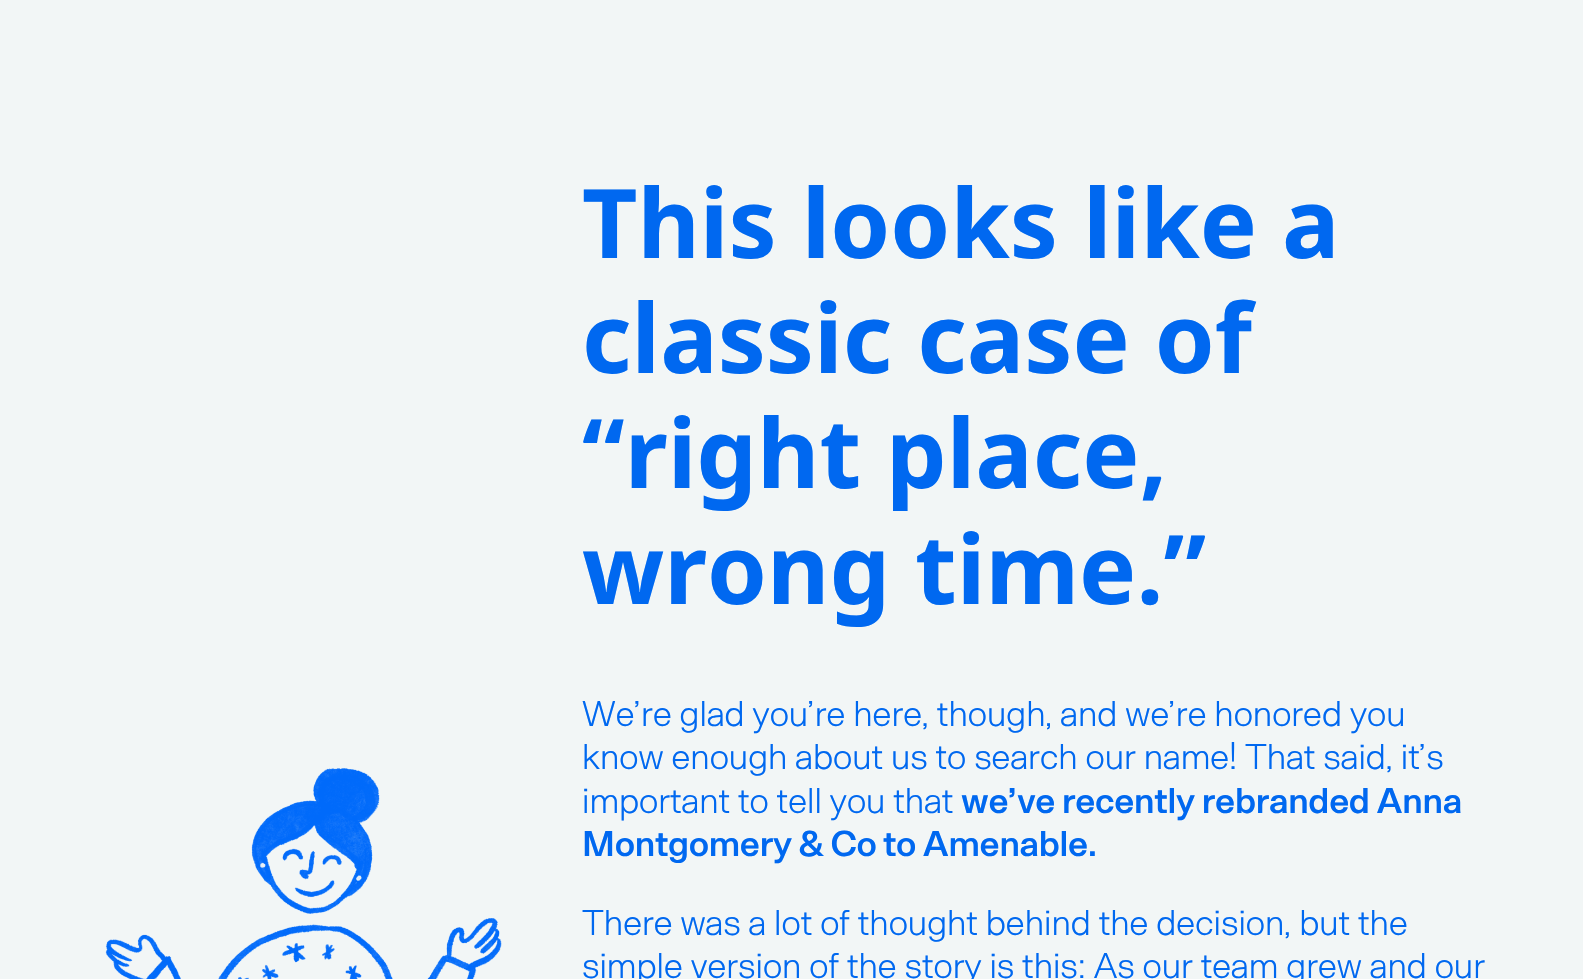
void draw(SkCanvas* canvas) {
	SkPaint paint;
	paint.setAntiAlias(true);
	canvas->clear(0xfff2f6f6);
	canvas->drawImageRect(SkImages::DeferredFromEncodedData(SkData::MakeFromFileName("img1.png")), SkRect::MakeXYWH(105, 768, 397, 211), SkSamplingOptions());
	SkFont f1(fontMgr->matchFamilyStyle("Noto Sans", SkFontStyle::Bold()), 96);
	f1.setSubpixel(true);
	paint.setColor(0xff0068f0);
	canvas->drawString("This looks like a", 582, 258, f1, paint);
	canvas->drawString("classic case of", 582, 373, f1, paint);
	canvas->drawString("“right place,", 582, 488, f1, paint);
	canvas->drawString("wrong time.”", 582, 604, f1, paint);
	SkFont f2(fontMgr->matchFamilyStyle("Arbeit", SkFontStyle(300, SkFontStyle::kNormal_Width, SkFontStyle::kUpright_Slant)), 36);
	f2.setSubpixel(true);
	canvas->drawString("We’re glad you’re here, though, and we’re honored you", 582, 726, f2, paint);
	canvas->drawString("know enough about us to search our name! That said, it’s", 582, 769, f2, paint);
	canvas->drawString("important to tell you that", 582, 813, f2, paint);
	SkFont f3(fontMgr->matchFamilyStyle("Arbeit", SkFontStyle(600, SkFontStyle::kNormal_Width, SkFontStyle::kUpright_Slant)), 36);
	f3.setSubpixel(true);
	canvas->drawString("we’ve recently rebranded Anna", 961, 813, f3, paint);
	canvas->drawString("Montgomery & Co to Amenable.", 582, 856, f3, paint);
	canvas->drawString("There was a lot of thought behind the decision, but the", 582, 935, f2, paint);
	canvas->drawString("simple version of the story is this: As our team grew and our", 582, 978, f2, paint);
}
